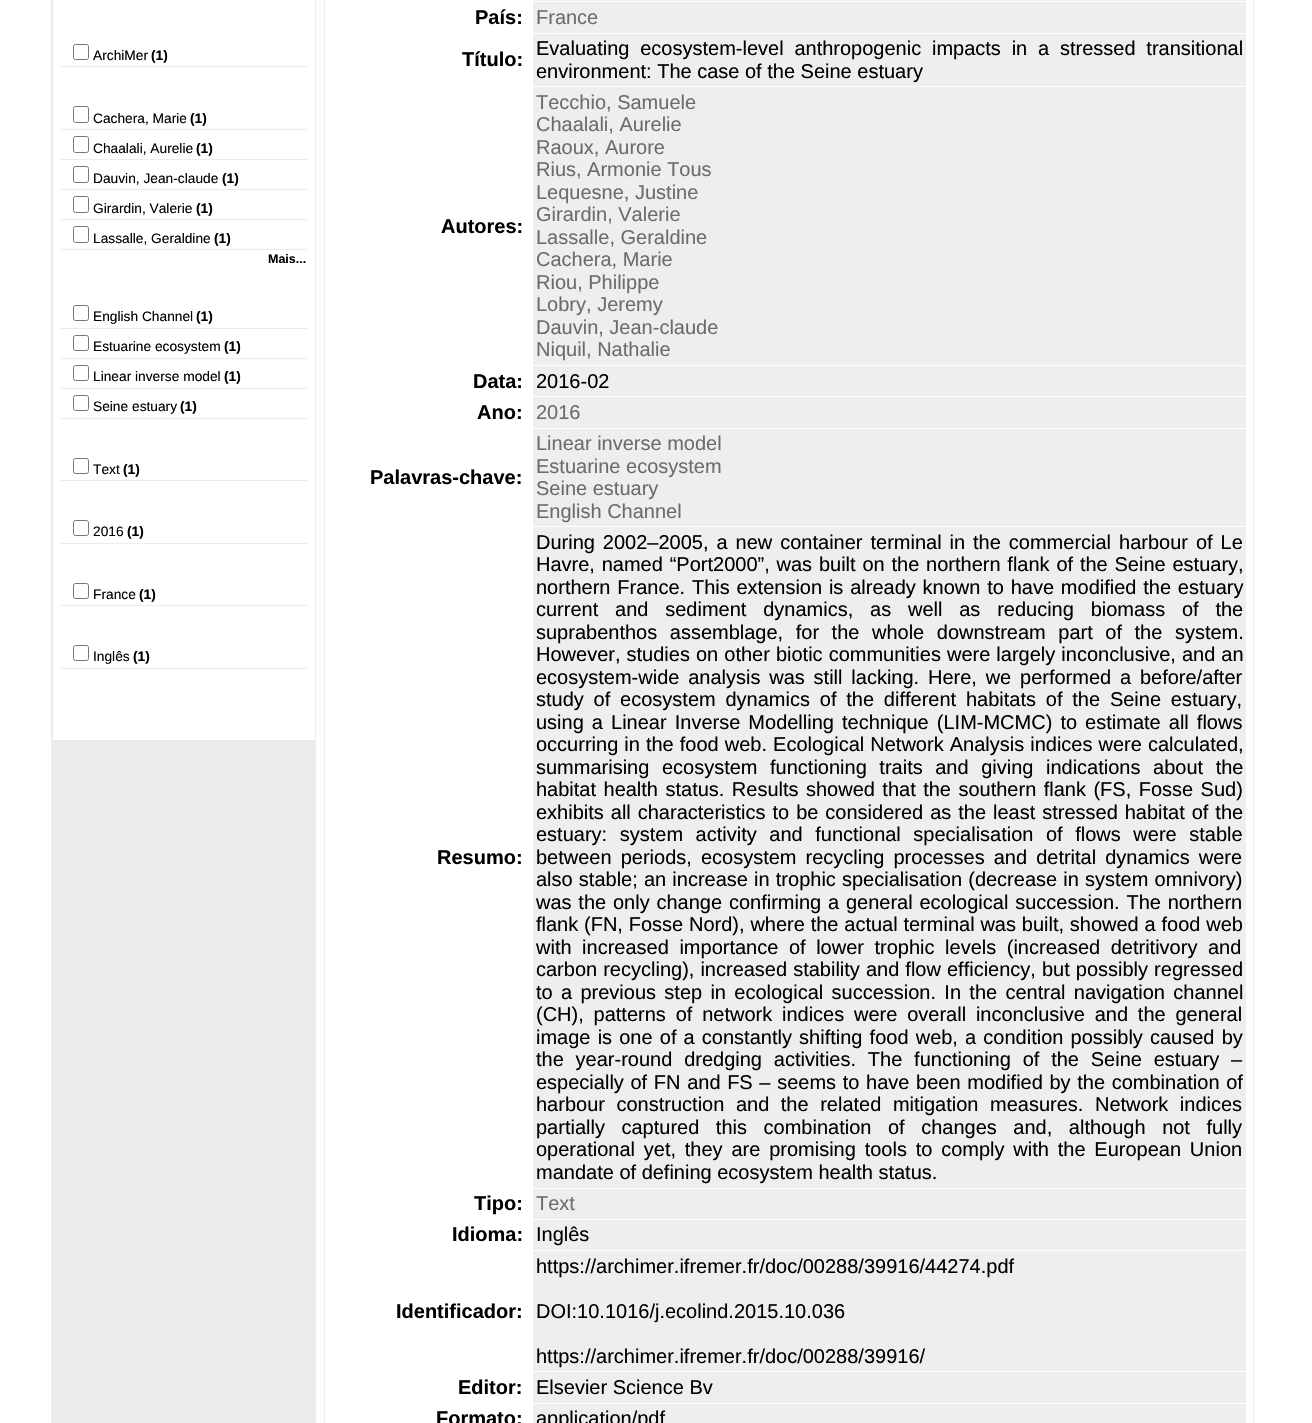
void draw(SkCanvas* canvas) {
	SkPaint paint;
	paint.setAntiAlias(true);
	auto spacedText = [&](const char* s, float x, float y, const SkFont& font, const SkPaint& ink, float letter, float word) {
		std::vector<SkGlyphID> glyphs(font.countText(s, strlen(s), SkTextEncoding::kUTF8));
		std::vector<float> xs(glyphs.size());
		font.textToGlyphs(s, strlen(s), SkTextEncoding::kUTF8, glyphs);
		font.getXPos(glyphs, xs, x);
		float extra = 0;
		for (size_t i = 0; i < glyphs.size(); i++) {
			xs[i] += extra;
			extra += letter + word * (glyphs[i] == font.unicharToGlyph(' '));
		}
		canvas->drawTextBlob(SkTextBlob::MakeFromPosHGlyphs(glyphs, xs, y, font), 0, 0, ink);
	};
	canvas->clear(0xffffffff);
	paint.setColor(0xffececec);
	canvas->drawRect(SkRect::MakeXYWH(51, 0, 265, 1423), paint);
	paint.setColor(0xffffffff);
	canvas->drawRect(SkRect::MakeXYWH(53, 0, 262, 740), paint);
	paint.setColor(0xffececec);
	canvas->drawRect(SkRect::MakeXYWH(60, 66, 248, 1), paint);
	paint.setStroke(true);
	paint.setStrokeWidth(1);
	paint.setColor(0xff767676);
	canvas->drawRoundRect(SkRect::MakeXYWH(73.5, 44.5, 15, 15), 2, 2, paint);
	SkFont f1(fontMgr->matchFamilyStyle("Liberation Sans", SkFontStyle::Normal()), 13.75);
	f1.setSubpixel(true);
	paint.setStroke(false);
	paint.setColor(0xff000000);
	canvas->drawString("ArchiMer", 93, 60, f1, paint);
	SkFont f2(fontMgr->matchFamilyStyle("Liberation Sans", SkFontStyle::Bold()), 13.75);
	f2.setSubpixel(true);
	canvas->drawString("(1)", 151, 60, f2, paint);
	paint.setColor(0xffececec);
	canvas->drawRect(SkRect::MakeXYWH(60, 129, 248, 1), paint);
	paint.setStroke(true);
	paint.setColor(0xff767676);
	canvas->drawRoundRect(SkRect::MakeXYWH(73.5, 106.5, 15, 16), 2, 2, paint);
	paint.setStroke(false);
	paint.setColor(0xff000000);
	canvas->drawString("Cachera, Marie", 93, 123, f1, paint);
	canvas->drawString("(1)", 190, 123, f2, paint);
	paint.setColor(0xffececec);
	canvas->drawRect(SkRect::MakeXYWH(60, 159, 248, 1), paint);
	paint.setStroke(true);
	paint.setColor(0xff767676);
	canvas->drawRoundRect(SkRect::MakeXYWH(73.5, 136.5, 15, 16), 2, 2, paint);
	paint.setStroke(false);
	paint.setColor(0xff000000);
	canvas->drawString("Chaalali, Aurelie", 93, 153, f1, paint);
	canvas->drawString("(1)", 196, 153, f2, paint);
	paint.setColor(0xffececec);
	canvas->drawRect(SkRect::MakeXYWH(60, 189, 248, 1), paint);
	paint.setStroke(true);
	paint.setColor(0xff767676);
	canvas->drawRoundRect(SkRect::MakeXYWH(73.5, 166.5, 15, 16), 2, 2, paint);
	paint.setStroke(false);
	paint.setColor(0xff000000);
	canvas->drawString("Dauvin, Jean-claude", 93, 183, f1, paint);
	canvas->drawString("(1)", 222, 183, f2, paint);
	paint.setColor(0xffececec);
	canvas->drawRect(SkRect::MakeXYWH(60, 219, 248, 1), paint);
	paint.setStroke(true);
	paint.setColor(0xff767676);
	canvas->drawRoundRect(SkRect::MakeXYWH(73.5, 196.5, 15, 16), 2, 2, paint);
	paint.setStroke(false);
	paint.setColor(0xff000000);
	canvas->drawString("Girardin, Valerie", 93, 213, f1, paint);
	canvas->drawString("(1)", 196, 213, f2, paint);
	paint.setColor(0xffececec);
	canvas->drawRect(SkRect::MakeXYWH(60, 249, 248, 1), paint);
	paint.setStroke(true);
	paint.setColor(0xff767676);
	canvas->drawRoundRect(SkRect::MakeXYWH(73.5, 226.5, 15, 16), 2, 2, paint);
	paint.setStroke(false);
	paint.setColor(0xff000000);
	canvas->drawString("Lassalle, Geraldine", 93, 243, f1, paint);
	canvas->drawString("(1)", 214, 243, f2, paint);
	SkFont f3(fontMgr->matchFamilyStyle("Liberation Sans", SkFontStyle::Bold()), 12.5);
	f3.setSubpixel(true);
	canvas->drawString("Mais...", 268, 263, f3, paint);
	paint.setColor(0xffececec);
	canvas->drawRect(SkRect::MakeXYWH(60, 328, 248, 1), paint);
	paint.setStroke(true);
	paint.setColor(0xff767676);
	canvas->drawRoundRect(SkRect::MakeXYWH(73.5, 305.5, 15, 15), 2, 2, paint);
	paint.setStroke(false);
	paint.setColor(0xff000000);
	canvas->drawString("English Channel", 93, 321, f1, paint);
	canvas->drawString("(1)", 196, 321, f2, paint);
	paint.setColor(0xffececec);
	canvas->drawRect(SkRect::MakeXYWH(60, 358, 248, 1), paint);
	paint.setStroke(true);
	paint.setColor(0xff767676);
	canvas->drawRoundRect(SkRect::MakeXYWH(73.5, 335.5, 15, 15), 2, 2, paint);
	paint.setStroke(false);
	paint.setColor(0xff000000);
	canvas->drawString("Estuarine ecosystem", 93, 351, f1, paint);
	canvas->drawString("(1)", 224, 351, f2, paint);
	paint.setColor(0xffececec);
	canvas->drawRect(SkRect::MakeXYWH(60, 388, 248, 1), paint);
	paint.setStroke(true);
	paint.setColor(0xff767676);
	canvas->drawRoundRect(SkRect::MakeXYWH(73.5, 365.5, 15, 15), 2, 2, paint);
	paint.setStroke(false);
	paint.setColor(0xff000000);
	canvas->drawString("Linear inverse model", 93, 381, f1, paint);
	canvas->drawString("(1)", 224, 381, f2, paint);
	paint.setColor(0xffececec);
	canvas->drawRect(SkRect::MakeXYWH(60, 418, 248, 1), paint);
	paint.setStroke(true);
	paint.setColor(0xff767676);
	canvas->drawRoundRect(SkRect::MakeXYWH(73.5, 395.5, 15, 15), 2, 2, paint);
	paint.setStroke(false);
	paint.setColor(0xff000000);
	canvas->drawString("Seine estuary", 93, 411, f1, paint);
	canvas->drawString("(1)", 180, 411, f2, paint);
	paint.setColor(0xffececec);
	canvas->drawRect(SkRect::MakeXYWH(60, 480, 248, 1), paint);
	paint.setStroke(true);
	paint.setColor(0xff767676);
	canvas->drawRoundRect(SkRect::MakeXYWH(73.5, 458.5, 15, 15), 2, 2, paint);
	paint.setStroke(false);
	paint.setColor(0xff000000);
	canvas->drawString("Text", 93, 474, f1, paint);
	canvas->drawString("(1)", 123, 474, f2, paint);
	paint.setColor(0xffececec);
	canvas->drawRect(SkRect::MakeXYWH(60, 543, 248, 1), paint);
	paint.setStroke(true);
	paint.setColor(0xff767676);
	canvas->drawRoundRect(SkRect::MakeXYWH(73.5, 520.5, 15, 15), 2, 2, paint);
	paint.setStroke(false);
	paint.setColor(0xff000000);
	canvas->drawString("2016", 93, 536, f1, paint);
	canvas->drawString("(1)", 127, 536, f2, paint);
	paint.setColor(0xffececec);
	canvas->drawRect(SkRect::MakeXYWH(60, 605, 248, 1), paint);
	paint.setStroke(true);
	paint.setColor(0xff767676);
	canvas->drawRoundRect(SkRect::MakeXYWH(73.5, 583.5, 15, 15), 2, 2, paint);
	paint.setStroke(false);
	paint.setColor(0xff000000);
	canvas->drawString("France", 93, 599, f1, paint);
	canvas->drawString("(1)", 139, 599, f2, paint);
	paint.setColor(0xffececec);
	canvas->drawRect(SkRect::MakeXYWH(60, 668, 248, 1), paint);
	paint.setStroke(true);
	paint.setColor(0xff767676);
	canvas->drawRoundRect(SkRect::MakeXYWH(73.5, 645.5, 15, 15), 2, 2, paint);
	paint.setStroke(false);
	paint.setColor(0xff000000);
	canvas->drawString("Inglês", 93, 661, f1, paint);
	canvas->drawString("(1)", 133, 661, f2, paint);
	paint.setStroke(true);
	paint.setColor(0xffececec);
	canvas->drawRect(SkRect::MakeXYWH(324.5, -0.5, 929, 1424), paint);
	paint.setStroke(false);
	paint.setColor(0xffeeeeee);
	canvas->drawRect(SkRect::MakeXYWH(533, 0, 713, 33), paint);
	paint.setColor(0xffffffff);
	canvas->drawRect(SkRect::MakeXYWH(533, 1, 713, 1), paint);
	SkFont f4(fontMgr->matchFamilyStyle("Liberation Sans", SkFontStyle::Bold()), 20);
	f4.setSubpixel(true);
	paint.setColor(0xff000000);
	canvas->drawString("País:", 475, 24, f4, paint);
	SkFont f5(fontMgr->matchFamilyStyle("Liberation Sans", SkFontStyle::Normal()), 20);
	f5.setSubpixel(true);
	paint.setColor(0xff6c6c6c);
	canvas->drawString("France", 536, 24, f5, paint);
	paint.setColor(0xff000000);
	canvas->drawString("Título:", 462, 66, f4, paint);
	paint.setColor(0xffeeeeee);
	canvas->drawRect(SkRect::MakeXYWH(533, 34, 713, 331), paint);
	paint.setColor(0xffffffff);
	canvas->drawRect(SkRect::MakeXYWH(533, 86, 713, 1), paint);
	paint.setColor(0xff000000);
	spacedText("Evaluating ecosystem-level anthropogenic impacts in a stressed transitional", 536, 55, f5, paint, 0, 5.25);
	canvas->drawString("environment: The case of the Seine estuary", 536, 78, f5, paint);
	canvas->drawString("Autores:", 441, 233, f4, paint);
	paint.setColor(0xff6c6c6c);
	canvas->drawString("Tecchio, Samuele", 536, 109, f5, paint);
	canvas->drawString("Chaalali, Aurelie", 536, 131, f5, paint);
	canvas->drawString("Raoux, Aurore", 536, 154, f5, paint);
	canvas->drawString("Rius, Armonie Tous", 536, 176, f5, paint);
	canvas->drawString("Lequesne, Justine", 536, 199, f5, paint);
	canvas->drawString("Girardin, Valerie", 536, 221, f5, paint);
	canvas->drawString("Lassalle, Geraldine", 536, 244, f5, paint);
	canvas->drawString("Cachera, Marie", 536, 266, f5, paint);
	canvas->drawString("Riou, Philippe", 536, 289, f5, paint);
	canvas->drawString("Lobry, Jeremy", 536, 311, f5, paint);
	canvas->drawString("Dauvin, Jean-claude", 536, 334, f5, paint);
	canvas->drawString("Niquil, Nathalie", 536, 356, f5, paint);
	paint.setColor(0xff000000);
	canvas->drawString("Data:", 473, 388, f4, paint);
	paint.setColor(0xffeeeeee);
	canvas->drawRect(SkRect::MakeXYWH(533, 366, 713, 62), paint);
	paint.setColor(0xffffffff);
	canvas->drawRect(SkRect::MakeXYWH(533, 396, 713, 1), paint);
	paint.setColor(0xff000000);
	canvas->drawString("2016-02", 536, 388, f5, paint);
	canvas->drawString("Ano:", 477, 419, f4, paint);
	paint.setColor(0xff6c6c6c);
	canvas->drawString("2016", 536, 419, f5, paint);
	paint.setColor(0xff000000);
	canvas->drawString("Palavras-chave:", 370, 484, f4, paint);
	paint.setColor(0xffeeeeee);
	canvas->drawRect(SkRect::MakeXYWH(533, 429, 713, 759), paint);
	paint.setColor(0xffffffff);
	canvas->drawRect(SkRect::MakeXYWH(533, 526, 713, 1), paint);
	paint.setColor(0xff6c6c6c);
	canvas->drawString("Linear inverse model", 536, 450, f5, paint);
	canvas->drawString("Estuarine ecosystem", 536, 473, f5, paint);
	canvas->drawString("Seine estuary", 536, 495, f5, paint);
	canvas->drawString("English Channel", 536, 518, f5, paint);
	paint.setColor(0xff000000);
	canvas->drawString("Resumo:", 437, 864, f4, paint);
	spacedText("During 2002–2005, a new container terminal in the commercial harbour of Le", 536, 549, f5, paint, 0, 2.4);
	spacedText("Havre, named “Port2000”, was built on the northern flank of the Seine estuary,", 536, 571, f5, paint, 0, 1.25);
	spacedText("northern France. This extension is already known to have modified the estuary", 536, 594, f5, paint, 0, 1.25);
	spacedText("current and sediment dynamics, as well as reducing biomass of the", 536, 616, f5, paint, 0, 11.25);
	spacedText("suprabenthos assemblage, for the whole downstream part of the system.", 536, 639, f5, paint, 0, 7);
	spacedText("However, studies on other biotic communities were largely inconclusive, and an", 536, 661, f5, paint, 0, 0.5);
	spacedText("ecosystem-wide analysis was still lacking. Here, we performed a before/after", 536, 684, f5, paint, 0, 3.25);
	spacedText("study of ecosystem dynamics of the different habitats of the Seine estuary,", 536, 706, f5, paint, 0, 4.25);
	spacedText("using a Linear Inverse Modelling technique (LIM-MCMC) to estimate all flows", 536, 729, f5, paint, 0, 2.5);
	spacedText("occurring in the food web. Ecological Network Analysis indices were calculated,", 536, 751, f5, paint, 0, 0.5);
	spacedText("summarising ecosystem functioning traits and giving indications about the", 536, 774, f5, paint, 0, 7);
	spacedText("habitat health status. Results showed that the southern flank (FS, Fosse Sud)", 536, 796, f5, paint, 0, 1.9);
	spacedText("exhibits all characteristics to be considered as the least stressed habitat of the", 536, 819, f5, paint, 0, 1.4);
	spacedText("estuary: system activity and functional specialisation of flows were stable", 536, 841, f5, paint, 0, 7);
	spacedText("between periods, ecosystem recycling processes and detrital dynamics were", 536, 864, f5, paint, 0, 3.5);
	spacedText("also stable; an increase in trophic specialisation (decrease in system omnivory)", 536, 886, f5, paint, 0, 0.6);
	spacedText("was the only change confirming a general ecological succession. The northern", 536, 909, f5, paint, 0, 1.25);
	spacedText("flank (FN, Fosse Nord), where the actual terminal was built, showed a food web", 536, 931, f5, paint, 0, 0.25);
	spacedText("with increased importance of lower trophic levels (increased detritivory and", 536, 954, f5, paint, 0, 5);
	spacedText("carbon recycling), increased stability and flow efficiency, but possibly regressed", 536, 976, f5, paint, 0, 0.5);
	spacedText("to a previous step in ecological succession. In the central navigation channel", 536, 999, f5, paint, 0, 2.75);
	spacedText("(CH), patterns of network indices were overall inconclusive and the general", 536, 1021, f5, paint, 0, 4.25);
	spacedText("image is one of a constantly shifting food web, a condition possibly caused by", 536, 1044, f5, paint, 0, 1.6);
	spacedText("the year-round dredging activities. The functioning of the Seine estuary –", 536, 1066, f5, paint, 0, 6.25);
	spacedText("especially of FN and FS – seems to have been modified by the combination of", 536, 1089, f5, paint, 0, 1.1);
	spacedText("harbour construction and the related mitigation measures. Network indices", 536, 1111, f5, paint, 0, 6);
	spacedText("partially captured this combination of changes and, although not fully", 536, 1134, f5, paint, 0, 11);
	spacedText("operational yet, they are promising tools to comply with the European Union", 536, 1156, f5, paint, 0, 3.25);
	canvas->drawString("mandate of defining ecosystem health status.", 536, 1179, f5, paint);
	canvas->drawString("Tipo:", 474, 1210, f4, paint);
	paint.setColor(0xffeeeeee);
	canvas->drawRect(SkRect::MakeXYWH(533, 1189, 713, 30), paint);
	paint.setColor(0xff6c6c6c);
	canvas->drawString("Text", 536, 1210, f5, paint);
	paint.setColor(0xff000000);
	canvas->drawString("Idioma:", 452, 1241, f4, paint);
	paint.setColor(0xffeeeeee);
	canvas->drawRect(SkRect::MakeXYWH(533, 1220, 713, 30), paint);
	paint.setColor(0xff000000);
	canvas->drawString("Inglês", 536, 1241, f5, paint);
	canvas->drawString("Identificador:", 396, 1318, f4, paint);
	paint.setColor(0xffeeeeee);
	canvas->drawRect(SkRect::MakeXYWH(533, 1251, 713, 152), paint);
	paint.setColor(0xffffffff);
	canvas->drawRect(SkRect::MakeXYWH(533, 1371, 713, 1), paint);
	paint.setColor(0xff000000);
	canvas->drawString("https://archimer.ifremer.fr/doc/00288/39916/44274.pdf", 536, 1273, f5, paint);
	canvas->drawString("DOI:10.1016/j.ecolind.2015.10.036", 536, 1318, f5, paint);
	canvas->drawString("https://archimer.ifremer.fr/doc/00288/39916/", 536, 1363, f5, paint);
	canvas->drawString("Editor:", 458, 1394, f4, paint);
	canvas->drawString("Elsevier Science Bv", 536, 1394, f5, paint);
	canvas->drawString("Formato:", 436, 1425, f4, paint);
	paint.setColor(0xffeeeeee);
	canvas->drawRect(SkRect::MakeXYWH(533, 1404, 713, 19), paint);
	paint.setColor(0xff000000);
	canvas->drawString("application/pdf", 536, 1425, f5, paint);
}
